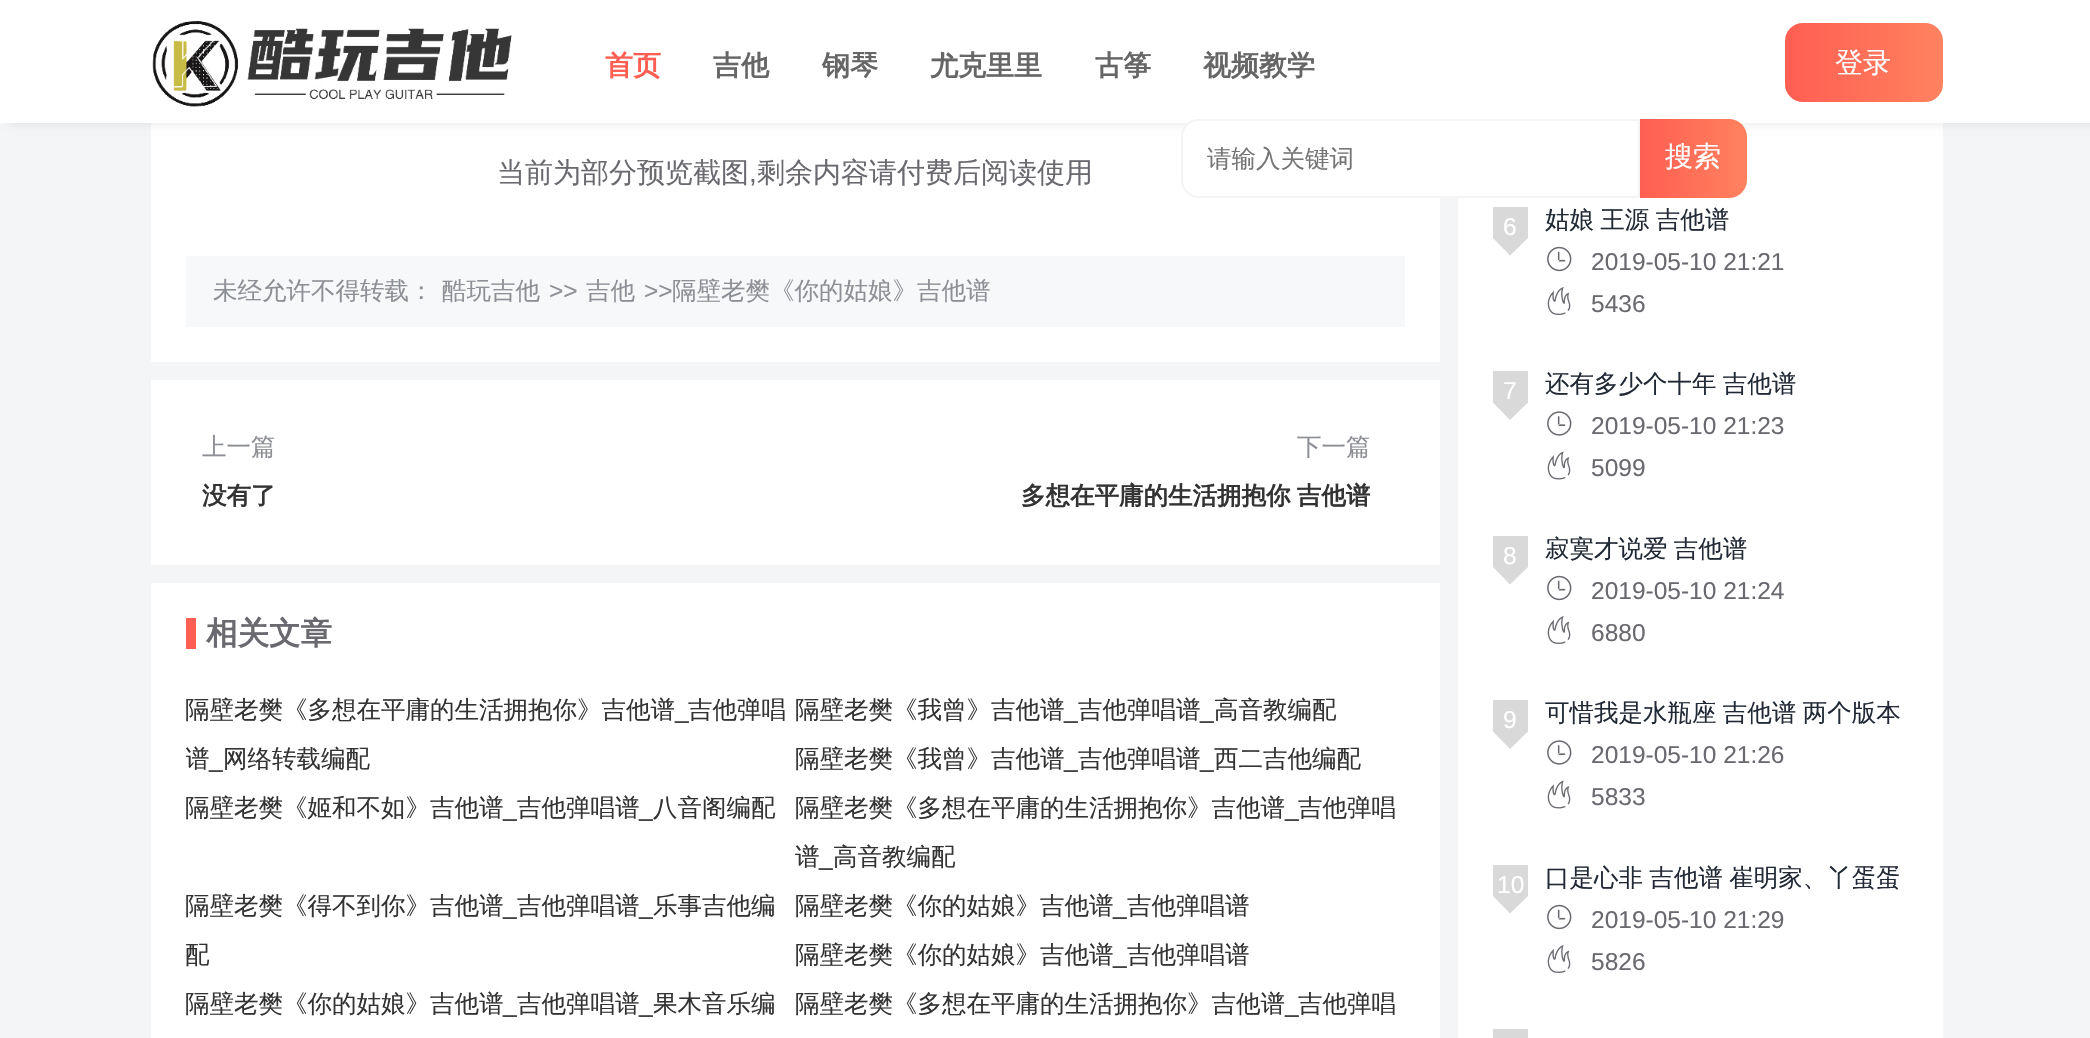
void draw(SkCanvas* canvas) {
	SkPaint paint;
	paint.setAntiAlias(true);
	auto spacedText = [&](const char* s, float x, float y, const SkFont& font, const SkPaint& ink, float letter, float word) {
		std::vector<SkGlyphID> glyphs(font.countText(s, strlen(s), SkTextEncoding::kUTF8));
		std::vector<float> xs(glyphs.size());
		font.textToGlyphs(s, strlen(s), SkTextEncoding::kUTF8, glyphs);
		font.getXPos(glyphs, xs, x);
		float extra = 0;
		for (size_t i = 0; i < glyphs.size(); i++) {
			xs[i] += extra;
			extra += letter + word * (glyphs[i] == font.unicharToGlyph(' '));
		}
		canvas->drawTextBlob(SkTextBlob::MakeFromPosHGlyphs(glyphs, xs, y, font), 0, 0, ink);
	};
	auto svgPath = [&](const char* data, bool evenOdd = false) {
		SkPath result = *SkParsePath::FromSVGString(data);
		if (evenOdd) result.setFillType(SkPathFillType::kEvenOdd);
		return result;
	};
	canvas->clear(0xfff3f5f7);
	paint.setColor(0xffffffff);
	canvas->drawRect(SkRect::MakeXYWH(151, 123, 1289, 239), paint);
	canvas->drawRect(SkRect::MakeXYWH(1458, 123, 485, 915), paint);
	paint.setColor(0x1a000000);
	paint.setMaskFilter(SkMaskFilter::MakeBlur(kNormal_SkBlurStyle, 4.5));
	canvas->drawRect(SkRect::MakeXYWH(9, 0, 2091, 123), paint);
	paint.setMaskFilter(nullptr);
	paint.setColor(0xffffffff);
	canvas->drawRect(SkRect::MakeXYWH(0, 0, 2090, 123), paint);
	canvas->drawImageRect(SkImages::DeferredFromEncodedData(SkData::MakeFromFileName("img1.png")), SkRect::MakeXYWH(152, 21, 360, 86), SkSamplingOptions());
	SkFont f1(fontMgr->matchFamilyStyle("WenQuanYi Zen Hei", SkFontStyle::Bold()), 28);
	f1.setSubpixel(true);
	paint.setColor(0xffff5e52);
	canvas->drawString("首页", 605, 75, f1, paint);
	paint.setColor(0xff666666);
	canvas->drawString("吉他", 713, 75, f1, paint);
	canvas->drawString("钢琴", 822, 75, f1, paint);
	canvas->drawString("尤克里里", 930, 75, f1, paint);
	canvas->drawString("古筝", 1095, 75, f1, paint);
	canvas->drawString("视频教学", 1203, 75, f1, paint);
	{
		const SkColor colors[] = {0xffff5e52, 0xffff825f};
		const float stops[] = {0, 1};
		const SkPoint ends[] = {{1785, 62}, {1943, 62}};
		paint.setShader(SkGradientShader::MakeLinear(ends, colors, stops, 2, SkTileMode::kClamp));
		paint.setAlpha(255);
	}
	canvas->drawRoundRect(SkRect::MakeXYWH(1785, 23, 158, 79), 18, 18, paint);
	SkFont f2(fontMgr->matchFamilyStyle("WenQuanYi Zen Hei", SkFontStyle(500, SkFontStyle::kNormal_Width, SkFontStyle::kUpright_Slant)), 28);
	f2.setSubpixel(true);
	paint.setShader(nullptr);
	paint.setColor(0xffffffff);
	canvas->drawString("登录", 1835, 72, f2, paint);
	canvas->drawPath(svgPath("M1199 120H1639V197H1199C1189.5 197 1182 189.5 1182 180V137C1182 127.5 1189.5 120 1199 120Z"), paint);
	paint.setStroke(true);
	paint.setStrokeWidth(2);
	paint.setColor(0xfff4f4f4);
	canvas->drawPath(svgPath("M1199 120H1639V197H1199C1189.5 197 1182 189.5 1182 180V137C1182 127.5 1189.5 120 1199 120Z"), paint);
	SkFont f3(fontMgr->matchFamilyStyle("WenQuanYi Zen Hei", SkFontStyle(500, SkFontStyle::kNormal_Width, SkFontStyle::kUpright_Slant)), 24.5);
	f3.setSubpixel(true);
	paint.setStroke(false);
	paint.setColor(0xff757575);
	canvas->drawString("请输入关键词", 1207, 167, f3, paint);
	{
		const SkColor colors[] = {0xffff5e52, 0xffff825f};
		const float stops[] = {0, 1};
		const SkPoint ends[] = {{1640, 158}, {1747, 158}};
		paint.setShader(SkGradientShader::MakeLinear(ends, colors, stops, 2, SkTileMode::kClamp));
		paint.setAlpha(255);
	}
	canvas->drawPath(svgPath("M1640 119H1729C1739 119 1747 127 1747 137V180C1747 190 1739 198 1729 198H1640Z"), paint);
	paint.setShader(nullptr);
	paint.setColor(0xffffffff);
	canvas->drawString("搜索", 1665, 166, f2, paint);
	paint.setColor(0xff6b6970);
	canvas->drawString("当前为部分预览截图", 497, 182, f2, paint);
	SkFont f4(fontMgr->matchFamilyStyle("Liberation Sans", SkFontStyle::Normal()), 28);
	f4.setSubpixel(true);
	canvas->drawString(",", 749, 182, f4, paint);
	canvas->drawString("剩余内容请付费后阅读使用", 757, 182, f2, paint);
	paint.setColor(0xfff7f8f9);
	canvas->drawRect(SkRect::MakeXYWH(186, 256, 1219, 71), paint);
	paint.setColor(0xff8d8f96);
	canvas->drawString("未经允许不得转载：", 213, 299, f3, paint);
	canvas->drawString("酷玩吉他", 442, 299, f3, paint);
	SkFont f5(fontMgr->matchFamilyStyle("Liberation Sans", SkFontStyle::Normal()), 24.5);
	f5.setSubpixel(true);
	canvas->drawString(">>", 549, 299, f5, paint);
	canvas->drawString("吉他", 586, 299, f3, paint);
	canvas->drawString(">>", 644, 299, f5, paint);
	canvas->drawString("隔壁老樊《你的姑娘》吉他谱", 672, 299, f3, paint);
	paint.setColor(0xffffffff);
	canvas->drawRect(SkRect::MakeXYWH(151, 380, 1289, 185), paint);
	paint.setColor(0xff8d8f96);
	canvas->drawString("上一篇", 202, 455, f3, paint);
	SkFont f6(fontMgr->matchFamilyStyle("WenQuanYi Zen Hei", SkFontStyle::Bold()), 24.5);
	f6.setSubpixel(true);
	paint.setColor(0xff333333);
	canvas->drawString("没有了", 202, 504, f6, paint);
	paint.setColor(0xff8d8f96);
	canvas->drawString("下一篇", 1297, 455, f3, paint);
	paint.setColor(0xff333333);
	spacedText("多想在平庸的生活拥抱你 吉他谱", 1021, 504, f6, paint, 0, -1);
	paint.setColor(0xffffffff);
	canvas->drawRect(SkRect::MakeXYWH(151, 583, 1289, 455), paint);
	paint.setColor(0xffff5e52);
	canvas->drawRect(SkRect::MakeXYWH(186, 618, 10, 31), paint);
	SkFont f7(fontMgr->matchFamilyStyle("WenQuanYi Zen Hei", SkFontStyle::Bold()), 31.5);
	f7.setSubpixel(true);
	paint.setColor(0xff6b6970);
	canvas->drawString("相关文章", 206, 644, f7, paint);
	paint.setColor(0xff333333);
	canvas->drawString("隔壁老樊《多想在平庸的生活拥抱你》吉他谱", 185, 718, f3, paint);
	canvas->drawString("_", 675, 718, f5, paint);
	canvas->drawString("吉他弹唱", 688, 718, f3, paint);
	canvas->save();
	canvas->clipRect(SkRect::MakeXYWH(186, 684, 609, 98));
	canvas->drawString("谱", 185, 767, f3, paint);
	canvas->restore();
	canvas->drawString("_", 209, 767, f5, paint);
	canvas->drawString("网络转载编配", 223, 767, f3, paint);
	canvas->drawString("隔壁老樊《我曾》吉他谱", 795, 718, f3, paint);
	canvas->drawString("_", 1064, 718, f5, paint);
	canvas->drawString("吉他弹唱谱", 1078, 718, f3, paint);
	canvas->drawString("_", 1200, 718, f5, paint);
	canvas->drawString("高音教编配", 1214, 718, f3, paint);
	canvas->drawString("隔壁老樊《我曾》吉他谱", 795, 767, f3, paint);
	canvas->drawString("_", 1064, 767, f5, paint);
	canvas->drawString("吉他弹唱谱", 1078, 767, f3, paint);
	canvas->drawString("_", 1200, 767, f5, paint);
	canvas->drawString("西二吉他编配", 1214, 767, f3, paint);
	canvas->drawString("隔壁老樊《姬和不如》吉他谱", 185, 816, f3, paint);
	canvas->drawString("_", 503, 816, f5, paint);
	canvas->drawString("吉他弹唱谱", 517, 816, f3, paint);
	canvas->drawString("_", 639, 816, f5, paint);
	canvas->drawString("八音阁编配", 653, 816, f3, paint);
	canvas->drawString("隔壁老樊《多想在平庸的生活拥抱你》吉他谱", 795, 816, f3, paint);
	canvas->drawString("_", 1285, 816, f5, paint);
	canvas->drawString("吉他弹唱", 1298, 816, f3, paint);
	canvas->drawString("谱", 795, 865, f3, paint);
	canvas->drawString("_", 819, 865, f5, paint);
	canvas->drawString("高音教编配", 833, 865, f3, paint);
	canvas->drawString("隔壁老樊《得不到你》吉他谱", 185, 914, f3, paint);
	canvas->drawString("_", 503, 914, f5, paint);
	canvas->drawString("吉他弹唱谱", 517, 914, f3, paint);
	canvas->drawString("_", 639, 914, f5, paint);
	canvas->drawString("乐事吉他编", 653, 914, f3, paint);
	canvas->drawString("配", 185, 963, f3, paint);
	canvas->drawString("隔壁老樊《你的姑娘》吉他谱", 795, 914, f3, paint);
	canvas->drawString("_", 1113, 914, f5, paint);
	canvas->drawString("吉他弹唱谱", 1127, 914, f3, paint);
	canvas->drawString("隔壁老樊《你的姑娘》吉他谱", 795, 963, f3, paint);
	canvas->drawString("_", 1113, 963, f5, paint);
	canvas->drawString("吉他弹唱谱", 1127, 963, f3, paint);
	canvas->drawString("隔壁老樊《你的姑娘》吉他谱", 185, 1012, f3, paint);
	canvas->drawString("_", 503, 1012, f5, paint);
	canvas->drawString("吉他弹唱谱", 517, 1012, f3, paint);
	canvas->drawString("_", 639, 1012, f5, paint);
	canvas->drawString("果木音乐编", 653, 1012, f3, paint);
	canvas->drawString("隔壁老樊《多想在平庸的生活拥抱你》吉他谱", 795, 1012, f3, paint);
	canvas->drawString("_", 1285, 1012, f5, paint);
	canvas->drawString("吉他弹唱", 1298, 1012, f3, paint);
	paint.setColor(0xffd9d9d9);
	canvas->drawRect(SkRect::MakeXYWH(1493, 207, 35, 31), paint);
	paint.setColor(0xffffffff);
	canvas->drawString("6", 1503, 235, f5, paint);
	paint.setColor(0xffd9d9d9);
	canvas->drawPath(svgPath("M1493 238H1528L1510 255.5Z"), paint);
	paint.setColor(0xff202935);
	spacedText("姑娘 王源 吉他谱", 1545, 228, f3, paint, 0, -1);
	canvas->drawImageRect(SkImages::DeferredFromEncodedData(SkData::MakeFromFileName("img2.png")), SkRect::MakeXYWH(1547, 246, 25, 26), SkSamplingOptions());
	paint.setColor(0xff6b6970);
	canvas->drawString("2019-05-10 21:21", 1591, 270, f5, paint);
	canvas->drawImageRect(SkImages::DeferredFromEncodedData(SkData::MakeFromFileName("img3.png")), SkRect::MakeXYWH(1547, 287, 24, 28), SkSamplingOptions());
	canvas->drawString("5436", 1591, 312, f5, paint);
	paint.setColor(0xffd9d9d9);
	canvas->drawRect(SkRect::MakeXYWH(1493, 371, 35, 32), paint);
	paint.setColor(0xffffffff);
	canvas->drawString("7", 1503, 399, f5, paint);
	paint.setColor(0xffd9d9d9);
	canvas->drawPath(svgPath("M1493 402.5H1528L1510 420Z"), paint);
	paint.setColor(0xff202935);
	spacedText("还有多少个十年 吉他谱", 1545, 392, f3, paint, 0, -1);
	canvas->drawImageRect(SkImages::DeferredFromEncodedData(SkData::MakeFromFileName("img4.png")), SkRect::MakeXYWH(1547, 411, 25, 25), SkSamplingOptions());
	paint.setColor(0xff6b6970);
	canvas->drawString("2019-05-10 21:23", 1591, 434, f5, paint);
	canvas->drawImageRect(SkImages::DeferredFromEncodedData(SkData::MakeFromFileName("img5.png")), SkRect::MakeXYWH(1547, 451, 24, 29), SkSamplingOptions());
	canvas->drawString("5099", 1591, 476, f5, paint);
	paint.setColor(0xffd9d9d9);
	canvas->drawRect(SkRect::MakeXYWH(1493, 536, 35, 31), paint);
	paint.setColor(0xffffffff);
	canvas->drawString("8", 1503, 564, f5, paint);
	paint.setColor(0xffd9d9d9);
	canvas->drawPath(svgPath("M1493 567H1528L1510 584.5Z"), paint);
	paint.setColor(0xff202935);
	spacedText("寂寞才说爱 吉他谱", 1545, 557, f3, paint, 0, -1);
	canvas->drawImageRect(SkImages::DeferredFromEncodedData(SkData::MakeFromFileName("img2.png")), SkRect::MakeXYWH(1547, 575, 25, 26), SkSamplingOptions());
	paint.setColor(0xff6b6970);
	canvas->drawString("2019-05-10 21:24", 1591, 599, f5, paint);
	canvas->drawImageRect(SkImages::DeferredFromEncodedData(SkData::MakeFromFileName("img3.png")), SkRect::MakeXYWH(1547, 616, 24, 28), SkSamplingOptions());
	canvas->drawString("6880", 1591, 641, f5, paint);
	paint.setColor(0xffd9d9d9);
	canvas->drawRect(SkRect::MakeXYWH(1493, 700, 35, 32), paint);
	paint.setColor(0xffffffff);
	canvas->drawString("9", 1503, 728, f5, paint);
	paint.setColor(0xffd9d9d9);
	canvas->drawPath(svgPath("M1493 731.5H1528L1510 749Z"), paint);
	paint.setColor(0xff202935);
	spacedText("可惜我是水瓶座 吉他谱 两个版本", 1545, 721, f3, paint, 0, -1);
	canvas->drawImageRect(SkImages::DeferredFromEncodedData(SkData::MakeFromFileName("img4.png")), SkRect::MakeXYWH(1547, 740, 25, 25), SkSamplingOptions());
	paint.setColor(0xff6b6970);
	canvas->drawString("2019-05-10 21:26", 1591, 763, f5, paint);
	canvas->drawImageRect(SkImages::DeferredFromEncodedData(SkData::MakeFromFileName("img5.png")), SkRect::MakeXYWH(1547, 780, 24, 29), SkSamplingOptions());
	canvas->drawString("5833", 1591, 805, f5, paint);
	paint.setColor(0xffd9d9d9);
	canvas->drawRect(SkRect::MakeXYWH(1493, 865, 35, 31), paint);
	paint.setColor(0xffffffff);
	canvas->drawString("10", 1497, 893, f5, paint);
	paint.setColor(0xffd9d9d9);
	canvas->drawPath(svgPath("M1493 896H1528L1510 913.5Z"), paint);
	paint.setColor(0xff202935);
	spacedText("口是心非 吉他谱 崔明家、丫蛋蛋", 1545, 886, f3, paint, 0, -1);
	canvas->drawImageRect(SkImages::DeferredFromEncodedData(SkData::MakeFromFileName("img2.png")), SkRect::MakeXYWH(1547, 904, 25, 26), SkSamplingOptions());
	paint.setColor(0xff6b6970);
	canvas->drawString("2019-05-10 21:29", 1591, 928, f5, paint);
	canvas->drawImageRect(SkImages::DeferredFromEncodedData(SkData::MakeFromFileName("img3.png")), SkRect::MakeXYWH(1547, 945, 24, 28), SkSamplingOptions());
	canvas->drawString("5826", 1591, 970, f5, paint);
	paint.setColor(0xffd9d9d9);
	canvas->drawRect(SkRect::MakeXYWH(1493, 1029, 35, 9), paint);
}
